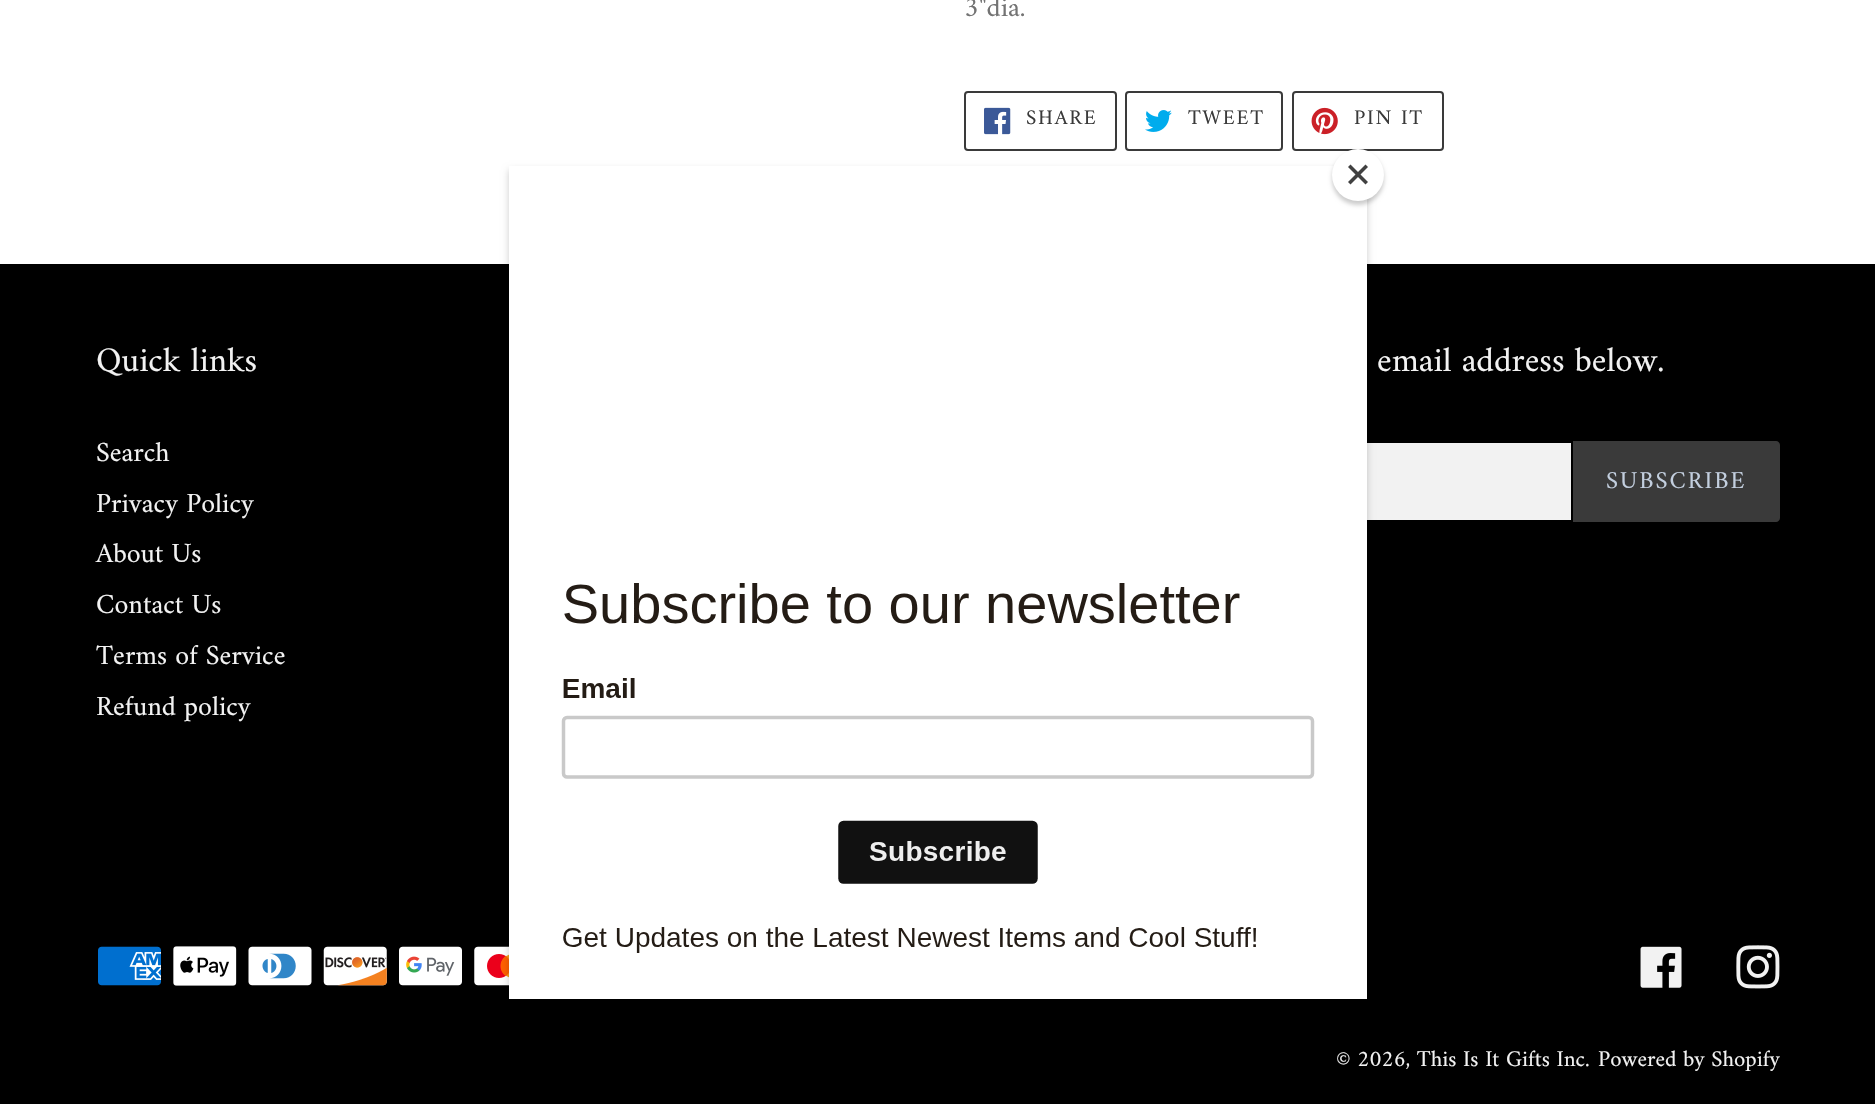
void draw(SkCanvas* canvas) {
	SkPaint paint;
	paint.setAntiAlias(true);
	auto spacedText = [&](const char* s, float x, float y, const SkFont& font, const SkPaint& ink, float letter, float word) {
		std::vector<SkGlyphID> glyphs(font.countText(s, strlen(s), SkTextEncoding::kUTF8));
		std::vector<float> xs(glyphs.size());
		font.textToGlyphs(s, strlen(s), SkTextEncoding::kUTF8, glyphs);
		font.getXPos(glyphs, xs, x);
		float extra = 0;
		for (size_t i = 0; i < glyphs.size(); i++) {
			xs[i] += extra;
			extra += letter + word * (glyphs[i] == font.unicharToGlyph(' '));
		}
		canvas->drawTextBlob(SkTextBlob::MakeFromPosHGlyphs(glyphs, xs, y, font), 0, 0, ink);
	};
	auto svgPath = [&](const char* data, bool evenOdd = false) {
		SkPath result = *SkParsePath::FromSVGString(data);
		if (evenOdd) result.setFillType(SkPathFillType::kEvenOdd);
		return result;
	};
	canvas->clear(0xffffffff);
	SkFont f1(fontMgr->matchFamilyStyle("Amiri", SkFontStyle::Normal()), 28);
	f1.setSubpixel(true);
	paint.setColor(0xff737373);
	canvas->drawString("3\"dia.", 964, 16, f1, paint);
	paint.setStroke(true);
	paint.setStrokeWidth(2);
	paint.setColor(0xff3a3a3a);
	canvas->drawRoundRect(SkRect::MakeXYWH(965, 92, 151, 58), 3, 3, paint);
	canvas->drawImageRect(SkImages::DeferredFromEncodedData(SkData::MakeFromFileName("img1.png")), SkRect::MakeXYWH(984, 107, 27, 28), SkSamplingOptions());
	SkFont f2(fontMgr->matchFamilyStyle("Amiri", SkFontStyle::Normal()), 21);
	f2.setSubpixel(true);
	paint.setStroke(false);
	spacedText("SHARE", 1026, 124, f2, paint, 1.75, 0);
	paint.setStroke(true);
	canvas->drawRoundRect(SkRect::MakeXYWH(1126, 92, 156, 58), 3, 3, paint);
	canvas->drawImageRect(SkImages::DeferredFromEncodedData(SkData::MakeFromFileName("img2.png")), SkRect::MakeXYWH(1145, 110, 27, 22), SkSamplingOptions());
	paint.setStroke(false);
	spacedText("TWEET", 1188, 124, f2, paint, 1.75, 0);
	paint.setStroke(true);
	canvas->drawRoundRect(SkRect::MakeXYWH(1293, 92, 150, 58), 3, 3, paint);
	canvas->drawImageRect(SkImages::DeferredFromEncodedData(SkData::MakeFromFileName("img3.png")), SkRect::MakeXYWH(1311, 107, 27, 28), SkSamplingOptions());
	paint.setStroke(false);
	spacedText("PIN IT", 1354, 124, f2, paint, 1.75, 0);
	paint.setColor(0xff000000);
	canvas->drawRect(SkRect::MakeXYWH(0, 264, 1875, 840), paint);
	SkFont f3(fontMgr->matchFamilyStyle("Amiri", SkFontStyle::Normal()), 35);
	f3.setSubpixel(true);
	paint.setColor(0xfff2f2f2);
	canvas->drawString("Quick links", 96, 371, f3, paint);
	canvas->drawString("Search", 96, 461, f1, paint);
	canvas->drawString("Privacy Policy", 96, 512, f1, paint);
	canvas->drawString("About Us", 96, 562, f1, paint);
	canvas->drawString("Contact Us", 96, 613, f1, paint);
	canvas->drawString("Terms of Service", 96, 664, f1, paint);
	canvas->drawString("Refund policy", 96, 715, f1, paint);
	canvas->drawString("email address below.", 1377, 371, f3, paint);
	canvas->drawRect(SkRect::MakeXYWH(1367, 443, 204, 77), paint);
	paint.setColor(0xff3a3a3a);
	canvas->drawPath(svgPath("M1573 441H1776C1778 441 1780 443 1780 445V518C1780 520 1778 522 1776 522H1573Z"), paint);
	SkFont f4(fontMgr->matchFamilyStyle("Amiri", SkFontStyle::Normal()), 24.5);
	f4.setSubpixel(true);
	paint.setColor(0xffc3cfdf);
	spacedText("SUBSCRIBE", 1606, 488, f4, paint, 2, 0);
	canvas->drawImageRect(SkImages::DeferredFromEncodedData(SkData::MakeFromFileName("img4.png")), SkRect::MakeXYWH(98, 946, 63, 40), SkSamplingOptions());
	canvas->drawImageRect(SkImages::DeferredFromEncodedData(SkData::MakeFromFileName("img5.png")), SkRect::MakeXYWH(173, 946, 64, 40), SkSamplingOptions());
	canvas->drawImageRect(SkImages::DeferredFromEncodedData(SkData::MakeFromFileName("img6.png")), SkRect::MakeXYWH(248, 946, 64, 40), SkSamplingOptions());
	canvas->drawImageRect(SkImages::DeferredFromEncodedData(SkData::MakeFromFileName("img7.png")), SkRect::MakeXYWH(323, 946, 64, 40), SkSamplingOptions());
	canvas->drawImageRect(SkImages::DeferredFromEncodedData(SkData::MakeFromFileName("img8.png")), SkRect::MakeXYWH(399, 946, 63, 40), SkSamplingOptions());
	canvas->drawImageRect(SkImages::DeferredFromEncodedData(SkData::MakeFromFileName("img9.png")), SkRect::MakeXYWH(474, 946, 35, 40), SkSamplingOptions());
	canvas->drawImageRect(SkImages::DeferredFromEncodedData(SkData::MakeFromFileName("img10.png")), SkRect::MakeXYWH(1640, 946, 42, 42), SkSamplingOptions());
	canvas->drawImageRect(SkImages::DeferredFromEncodedData(SkData::MakeFromFileName("img11.png")), SkRect::MakeXYWH(1736, 945, 44, 44), SkSamplingOptions());
	SkFont f5(fontMgr->matchFamilyStyle("Amiri", SkFontStyle::Normal()), 22.75);
	f5.setSubpixel(true);
	paint.setColor(0xfff2f2f2);
	canvas->drawString("© 2026, This Is It Gifts Inc.", 1336, 1066, f5, paint);
	canvas->drawString("Powered by Shopify", 1598, 1066, f5, paint);
	canvas->save();
	canvas->clipPath(svgPath("M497 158H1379V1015H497ZM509 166H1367V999H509Z", true), true);
	paint.setColor(0x33000000);
	paint.setMaskFilter(SkMaskFilter::MakeBlur(kNormal_SkBlurStyle, 3.5));
	canvas->drawRect(SkRect::MakeXYWH(509, 170, 858, 833), paint);
	paint.setMaskFilter(nullptr);
	canvas->restore();
	canvas->drawImageRect(SkImages::DeferredFromEncodedData(SkData::MakeFromFileName("img12.png")), SkRect::MakeXYWH(509, 171, 858, 828), SkSamplingOptions());
	paint.setMaskFilter(SkMaskFilter::MakeBlur(kNormal_SkBlurStyle, 2));
	canvas->drawRoundRect(SkRect::MakeXYWH(1332, 152, 52, 53), 26, 26, paint);
	paint.setMaskFilter(nullptr);
	paint.setColor(0xffffffff);
	canvas->drawCircle(1358, 175, 26, paint);
	paint.setColor(0xff414141);
	canvas->drawPath(svgPath("M1365.5 164.5L1368 167L1350.5 184.5L1348 182Z"), paint);
	canvas->drawPath(svgPath("M1348 167L1350.5 164.5L1368 182L1365.5 184.5Z"), paint);
}
